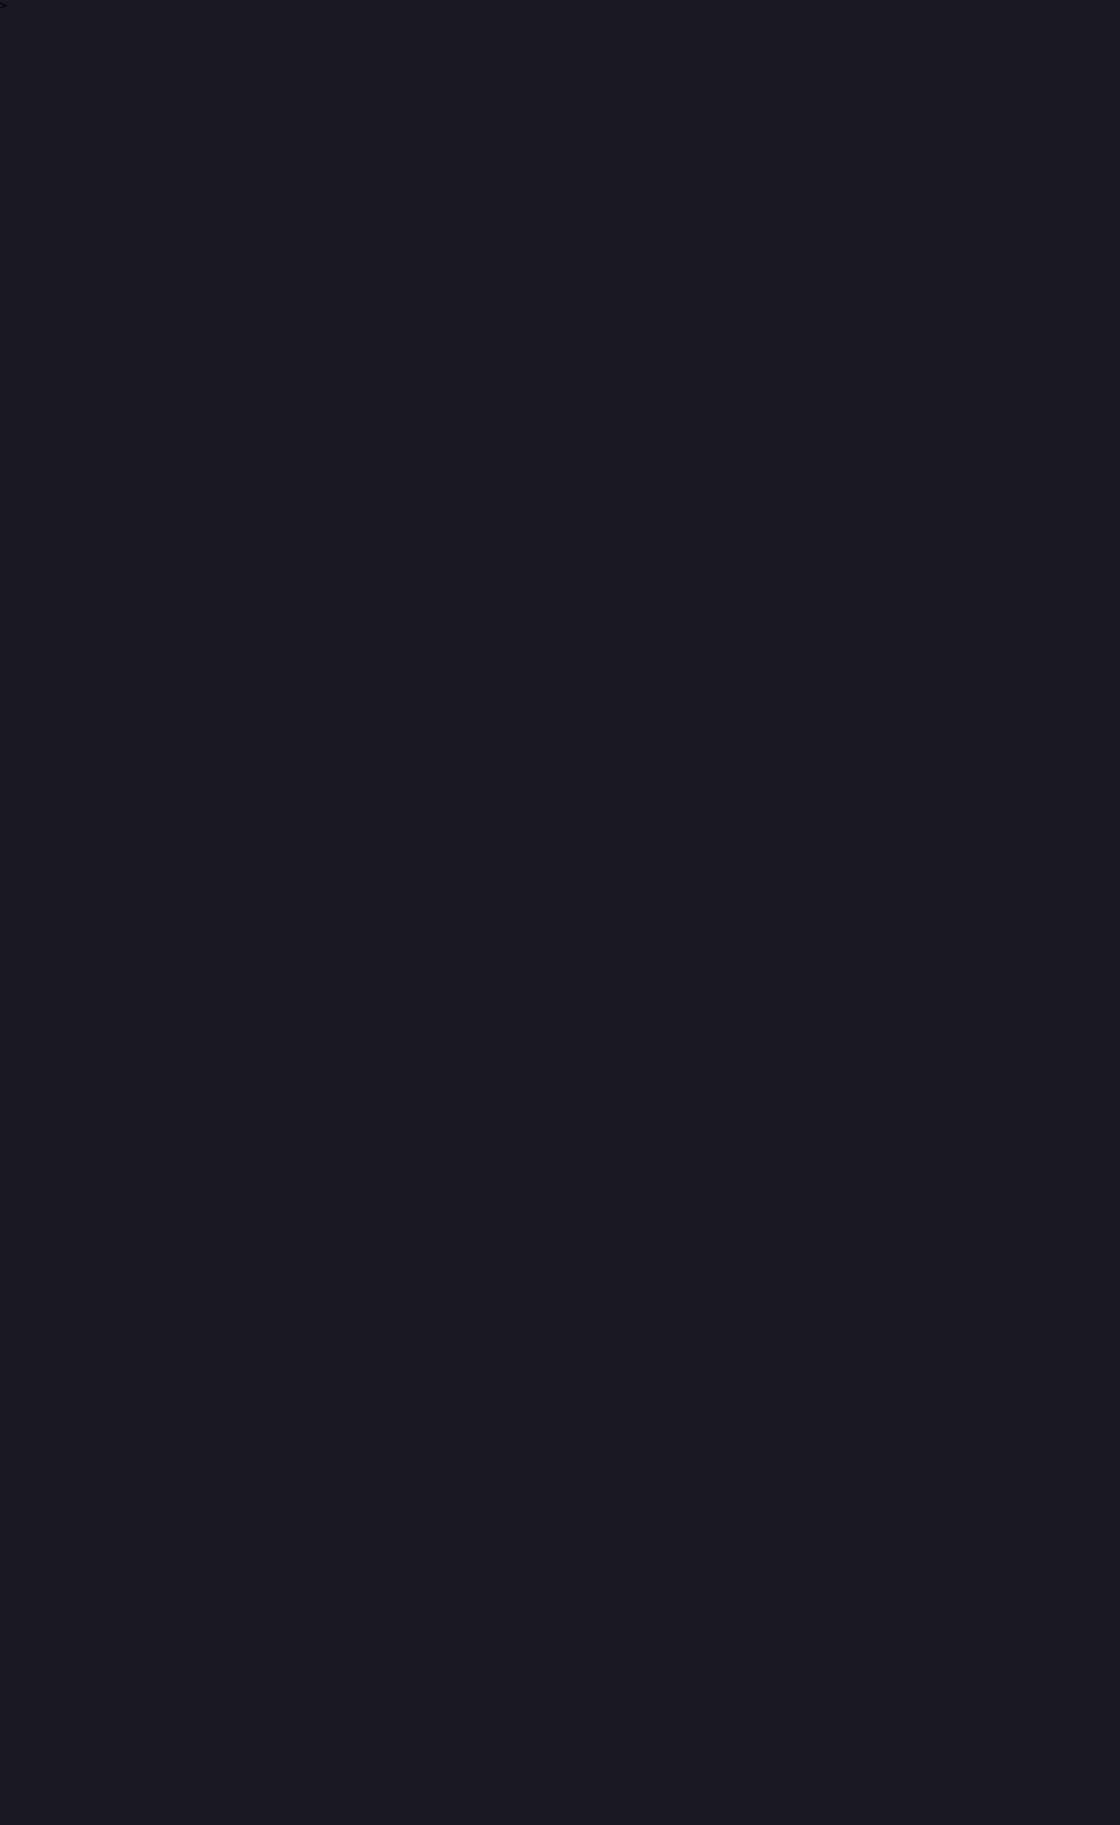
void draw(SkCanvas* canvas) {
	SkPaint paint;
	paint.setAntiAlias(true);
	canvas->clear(0xff191922);
	SkFont f1(fontMgr->matchFamilyStyle("Noto Sans", SkFontStyle::Normal()), 12);
	f1.setSubpixel(true);
	paint.setColor(0xff000000);
	canvas->drawString(">", 0, 10, f1, paint);
}
